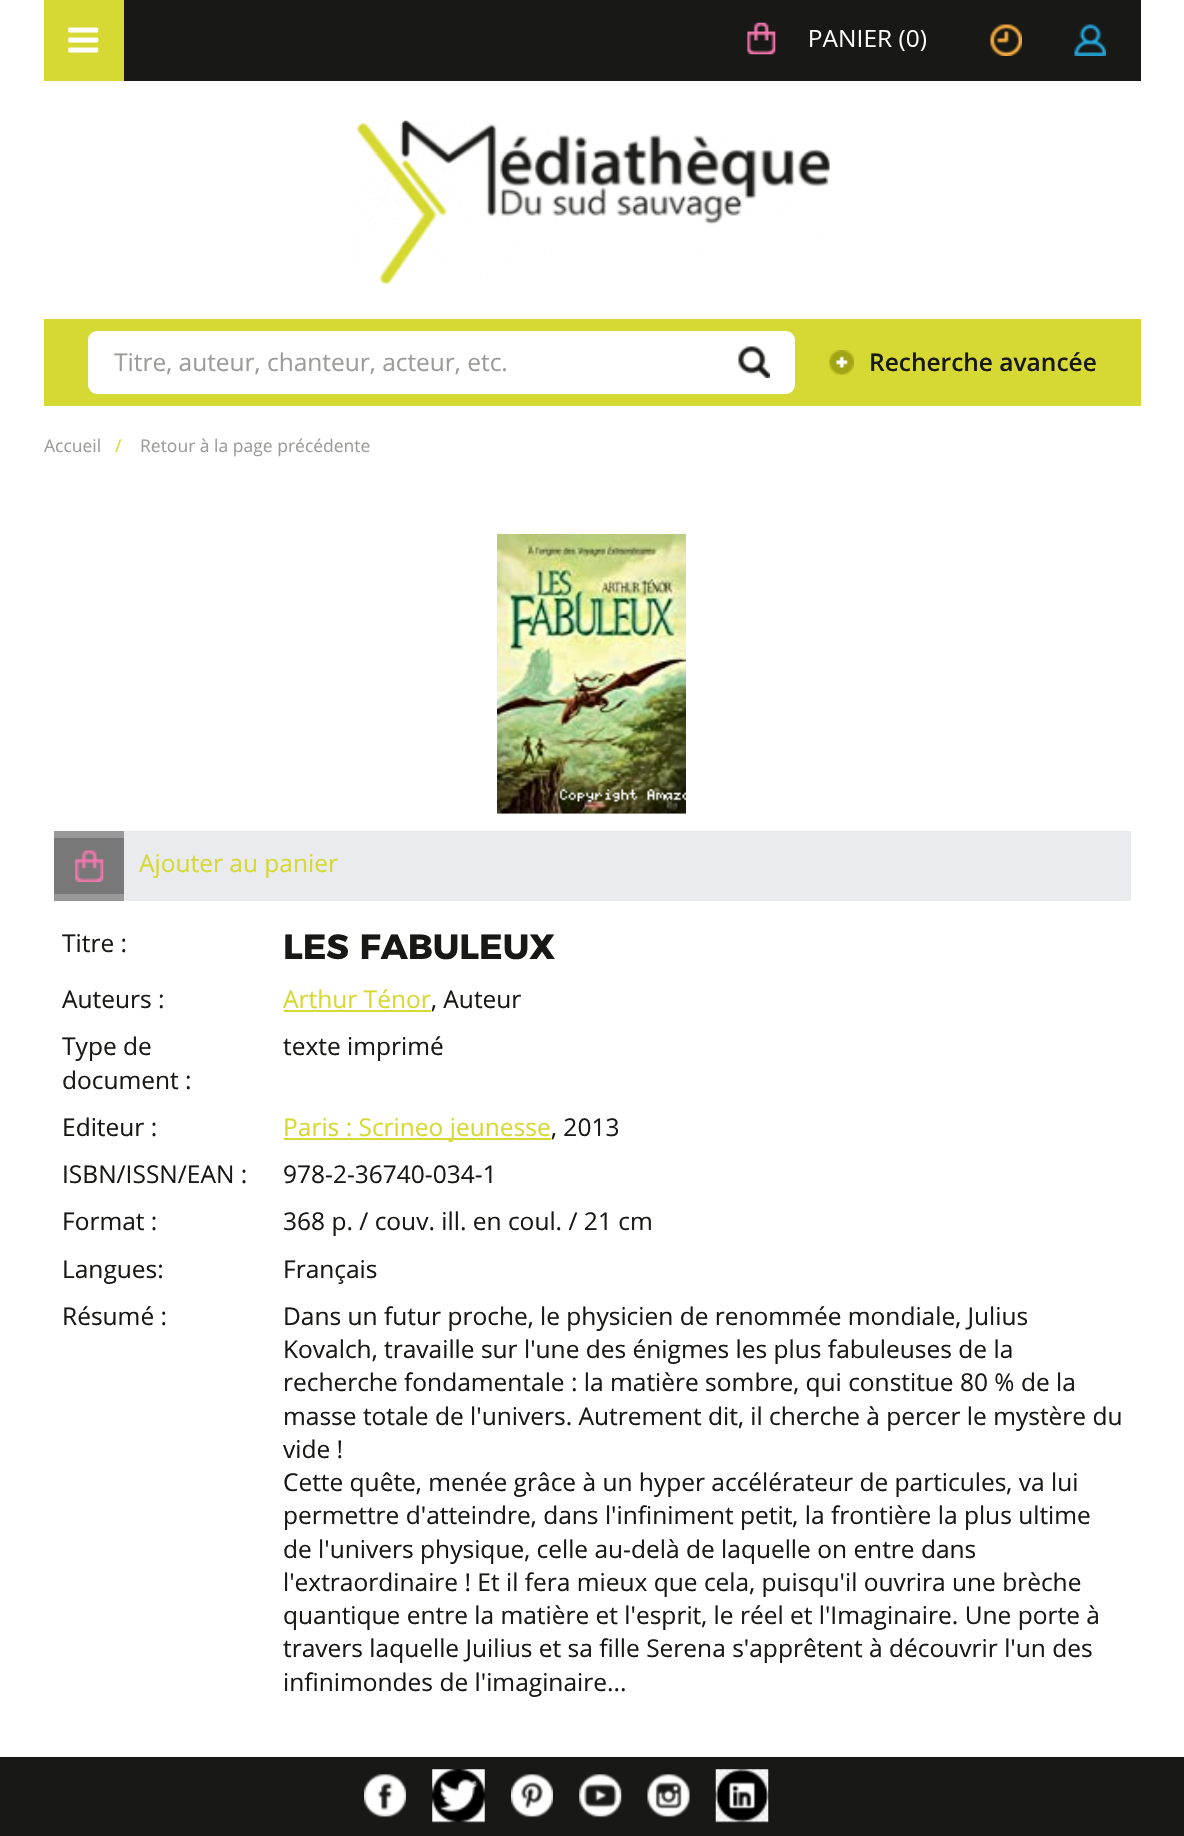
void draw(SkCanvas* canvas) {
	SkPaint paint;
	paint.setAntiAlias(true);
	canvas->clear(0xffffffff);
	paint.setColor(0xffd6d933);
	canvas->drawRect(SkRect::MakeXYWH(44, 0, 80, 81), paint);
	canvas->drawImageRect(SkImages::DeferredFromEncodedData(SkData::MakeFromFileName("img1.png")), SkRect::MakeXYWH(68, 27, 31, 26), SkSamplingOptions());
	paint.setColor(0xff181816);
	canvas->drawRect(SkRect::MakeXYWH(124, 0, 1017, 81), paint);
	canvas->drawImageRect(SkImages::DeferredFromEncodedData(SkData::MakeFromFileName("img2.png")), SkRect::MakeXYWH(990, 24, 32, 32), SkSamplingOptions());
	canvas->drawImageRect(SkImages::DeferredFromEncodedData(SkData::MakeFromFileName("img3.png")), SkRect::MakeXYWH(1074, 24, 32, 32), SkSamplingOptions());
	canvas->drawImageRect(SkImages::DeferredFromEncodedData(SkData::MakeFromFileName("img4.png")), SkRect::MakeXYWH(747, 22, 179, 33), SkSamplingOptions());
	canvas->drawImageRect(SkImages::DeferredFromEncodedData(SkData::MakeFromFileName("img5.png")), SkRect::MakeXYWH(357, 120, 473, 164), SkSamplingOptions());
	paint.setColor(0xffd6d933);
	canvas->drawRect(SkRect::MakeXYWH(44, 319, 1097, 87), paint);
	paint.setColor(0xffffffff);
	canvas->drawRoundRect(SkRect::MakeXYWH(88, 331, 707, 63), 9, 9, paint);
	SkFont f1(fontMgr->matchFamilyStyle("Open Sans", SkFontStyle::Normal()), 24.5);
	f1.setSubpixel(true);
	paint.setColor(0xff9b9b99);
	canvas->drawString("Titre, auteur, chanteur, acteur, etc.", 114, 371, f1, paint);
	canvas->drawImageRect(SkImages::DeferredFromEncodedData(SkData::MakeFromFileName("img6.png")), SkRect::MakeXYWH(738, 346, 32, 32), SkSamplingOptions());
	canvas->drawImageRect(SkImages::DeferredFromEncodedData(SkData::MakeFromFileName("img7.png")), SkRect::MakeXYWH(829, 350, 25, 25), SkSamplingOptions());
	SkFont f2(fontMgr->matchFamilyStyle("Open Sans", SkFontStyle(600, SkFontStyle::kNormal_Width, SkFontStyle::kUpright_Slant)), 24.5);
	f2.setSubpixel(true);
	paint.setColor(0xff181816);
	canvas->drawString("Recherche avancée", 869, 371, f2, paint);
	SkFont f3(fontMgr->matchFamilyStyle("Open Sans", SkFontStyle::Normal()), 17.5);
	f3.setSubpixel(true);
	paint.setColor(0xff9b9b99);
	canvas->drawString("Accueil", 44, 452, f3, paint);
	paint.setColor(0xffd6d933);
	canvas->drawString("/", 115, 452, f3, paint);
	paint.setColor(0xff9b9b99);
	canvas->drawString("Retour à la page précédente", 140, 452, f3, paint);
	paint.setColor(0xff181816);
	canvas->drawRect(SkRect::MakeXYWH(0, 1757, 1184, 79), paint);
	canvas->drawImageRect(SkImages::DeferredFromEncodedData(SkData::MakeFromFileName("img8.png")), SkRect::MakeXYWH(364, 1774, 42, 44), SkSamplingOptions());
	canvas->drawImageRect(SkImages::DeferredFromEncodedData(SkData::MakeFromFileName("img9.png")), SkRect::MakeXYWH(432, 1769, 53, 54), SkSamplingOptions());
	canvas->drawImageRect(SkImages::DeferredFromEncodedData(SkData::MakeFromFileName("img10.png")), SkRect::MakeXYWH(511, 1774, 42, 44), SkSamplingOptions());
	canvas->drawImageRect(SkImages::DeferredFromEncodedData(SkData::MakeFromFileName("img11.png")), SkRect::MakeXYWH(579, 1774, 43, 44), SkSamplingOptions());
	canvas->drawImageRect(SkImages::DeferredFromEncodedData(SkData::MakeFromFileName("img12.png")), SkRect::MakeXYWH(647, 1774, 43, 44), SkSamplingOptions());
	canvas->drawImageRect(SkImages::DeferredFromEncodedData(SkData::MakeFromFileName("img13.png")), SkRect::MakeXYWH(715, 1769, 54, 54), SkSamplingOptions());
	canvas->drawImageRect(SkImages::DeferredFromEncodedData(SkData::MakeFromFileName("img14.png")), SkRect::MakeXYWH(497, 533, 189, 281), SkSamplingOptions());
	paint.setColor(0xff999999);
	canvas->drawRect(SkRect::MakeXYWH(54, 831, 70, 70), paint);
	paint.setColor(0xff787878);
	canvas->drawRect(SkRect::MakeXYWH(54, 838, 70, 56), paint);
	canvas->drawImageRect(SkImages::DeferredFromEncodedData(SkData::MakeFromFileName("img15.png")), SkRect::MakeXYWH(75, 850, 29, 32), SkSamplingOptions());
	paint.setColor(0xffe9ebee);
	canvas->drawRect(SkRect::MakeXYWH(124, 831, 1007, 70), paint);
	paint.setColor(0xffd6d933);
	canvas->drawString("Ajouter au panier", 139, 872, f1, paint);
	paint.setColor(0xff181816);
	canvas->drawString("Titre :", 62, 952, f1, paint);
	SkFont f4(fontMgr->matchFamilyStyle("Montserrat", SkFontStyle::Bold()), 35);
	f4.setSubpixel(true);
	canvas->drawString("LES FABULEUX", 283, 959, f4, paint);
	canvas->drawString("Auteurs :", 62, 1008, f1, paint);
	paint.setColor(0xffd6d933);
	canvas->drawString("Arthur Ténor", 283, 1008, f1, paint);
	paint.setColor(0xff181816);
	canvas->drawString(", Auteur", 431, 1008, f1, paint);
	paint.setColor(0xffd6d933);
	canvas->drawRect(SkRect::MakeXYWH(284, 1010, 147, 2), paint);
	paint.setColor(0xff181816);
	canvas->drawString("Type de", 62, 1055, f1, paint);
	canvas->drawString("document :", 62, 1089, f1, paint);
	canvas->drawString("texte imprimé", 283, 1055, f1, paint);
	canvas->drawString("Editeur :", 62, 1136, f1, paint);
	paint.setColor(0xffd6d933);
	canvas->drawRect(SkRect::MakeXYWH(284, 1138, 267, 2), paint);
	canvas->drawString("Paris : Scrineo jeunesse", 283, 1136, f1, paint);
	paint.setColor(0xff181816);
	canvas->drawString(", 2013", 551, 1136, f1, paint);
	canvas->drawString("ISBN/ISSN/EAN :", 62, 1183, f1, paint);
	canvas->drawString("978-2-36740-034-1", 283, 1183, f1, paint);
	canvas->drawString("Format :", 62, 1230, f1, paint);
	canvas->drawString("368 p. / couv. ill. en coul. / 21 cm", 283, 1230, f1, paint);
	canvas->drawString("Langues:", 62, 1278, f1, paint);
	canvas->drawString("Français", 283, 1278, f1, paint);
	canvas->drawString("Résumé :", 62, 1325, f1, paint);
	canvas->drawString("Dans un futur proche, le physicien de renommée mondiale, Julius", 283, 1325, f1, paint);
	canvas->drawString("Kovalch, travaille sur l'une des énigmes les plus fabuleuses de la", 283, 1358, f1, paint);
	canvas->drawString("recherche fondamentale : la matière sombre, qui constitue 80 % de la", 283, 1391, f1, paint);
	canvas->drawString("masse totale de l'univers. Autrement dit, il cherche à percer le mystère du", 283, 1425, f1, paint);
	canvas->drawString("vide !", 283, 1458, f1, paint);
	canvas->drawString("Cette quête, menée grâce à un hyper accélérateur de particules, va lui", 283, 1491, f1, paint);
	canvas->drawString("permettre d'atteindre, dans l'infiniment petit, la frontière la plus ultime", 283, 1524, f1, paint);
	canvas->drawString("de l'univers physique, celle au-delà de laquelle on entre dans", 283, 1558, f1, paint);
	canvas->drawString("l'extraordinaire ! Et il fera mieux que cela, puisqu'il ouvrira une brèche", 283, 1591, f1, paint);
	canvas->drawString("quantique entre la matière et l'esprit, le réel et l'Imaginaire. Une porte à", 283, 1624, f1, paint);
	canvas->drawString("travers laquelle Juilius et sa fille Serena s'apprêtent à découvrir l'un des", 283, 1657, f1, paint);
	canvas->drawString("infinimondes de l'imaginaire...", 283, 1691, f1, paint);
}
